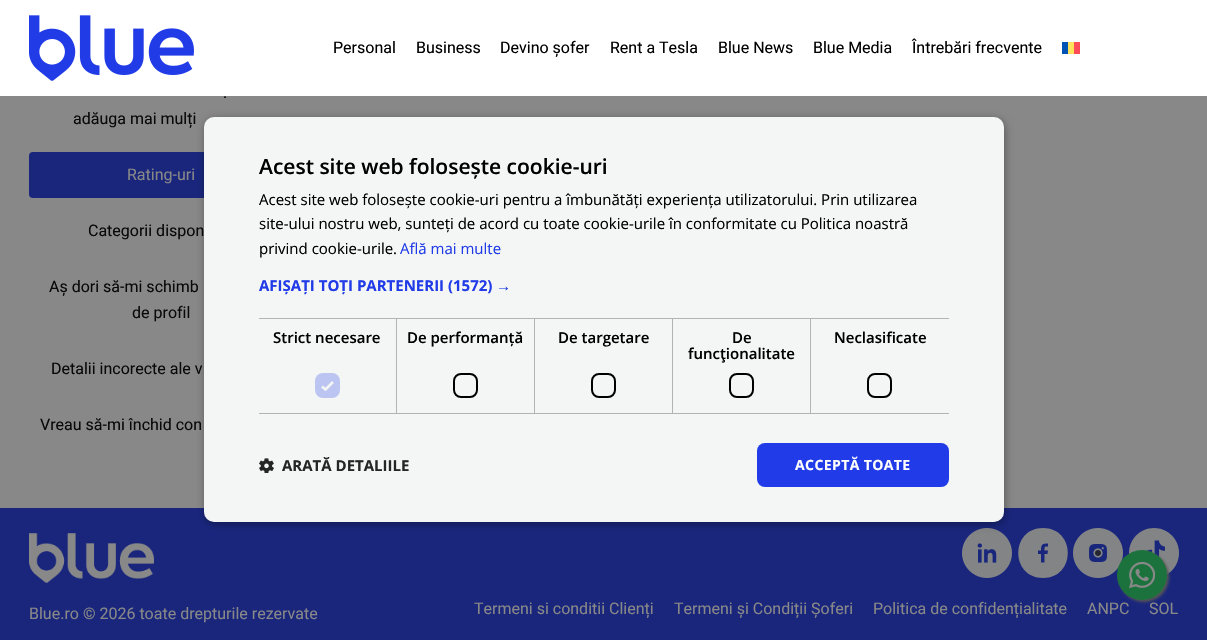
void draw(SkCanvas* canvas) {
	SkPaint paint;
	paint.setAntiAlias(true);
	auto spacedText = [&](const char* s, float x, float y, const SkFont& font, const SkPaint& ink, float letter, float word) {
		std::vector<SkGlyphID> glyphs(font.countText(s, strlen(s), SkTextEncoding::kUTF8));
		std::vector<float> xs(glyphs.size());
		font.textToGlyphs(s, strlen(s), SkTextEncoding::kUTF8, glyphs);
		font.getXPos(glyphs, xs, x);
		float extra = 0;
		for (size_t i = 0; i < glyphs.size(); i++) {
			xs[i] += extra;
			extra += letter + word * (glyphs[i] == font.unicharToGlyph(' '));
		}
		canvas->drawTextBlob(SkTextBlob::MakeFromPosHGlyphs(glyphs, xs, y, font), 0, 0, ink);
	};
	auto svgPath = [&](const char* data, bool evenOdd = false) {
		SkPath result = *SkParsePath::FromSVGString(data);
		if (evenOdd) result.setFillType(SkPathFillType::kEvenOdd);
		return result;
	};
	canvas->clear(0xff888888);
	paint.setColor(0xffffffff);
	canvas->drawRect(SkRect::MakeXYWH(0, 0, 1207, 96), paint);
	canvas->drawImageRect(SkImages::DeferredFromEncodedData(SkData::MakeFromFileName("img1.png")), SkRect::MakeXYWH(29, 15, 165, 66), SkSamplingOptions());
	SkFont f1(fontMgr->matchFamilyStyle("Roboto", SkFontStyle::Normal()), 16);
	f1.setSubpixel(true);
	paint.setColor(0xff000000);
	canvas->drawString("Personal", 333, 53, f1, paint);
	canvas->drawString("Business", 416, 53, f1, paint);
	canvas->drawString("Devino șofer", 500, 53, f1, paint);
	canvas->drawString("Rent a Tesla", 610, 53, f1, paint);
	canvas->drawString("Blue News", 718, 53, f1, paint);
	canvas->drawString("Blue Media", 813, 53, f1, paint);
	canvas->drawString("Întrebări frecvente", 912, 53, f1, paint);
	paint.setColor(0xffffe15a);
	canvas->drawRect(SkRect::MakeXYWH(1068, 42, 6, 12), paint);
	paint.setColor(0xffff4b55);
	canvas->drawRect(SkRect::MakeXYWH(1074, 42, 6, 12), paint);
	paint.setColor(0xff0052b4);
	canvas->drawRect(SkRect::MakeXYWH(1062, 42, 6, 12), paint);
	paint.setColor(0xff090909);
	canvas->drawString(".", 223, 98, f1, paint);
	canvas->drawString("adăuga mai mulți", 73, 124, f1, paint);
	paint.setColor(0xff19267c);
	canvas->drawRoundRect(SkRect::MakeXYWH(29, 152, 265, 46), 4, 4, paint);
	paint.setColor(0xff888888);
	canvas->drawString("Rating-uri", 127, 180, f1, paint);
	paint.setColor(0xff090909);
	canvas->drawString("Categorii dispon", 88, 236, f1, paint);
	canvas->drawString("Aș dori să-mi schimb", 49, 292, f1, paint);
	canvas->drawString("de profil", 132, 318, f1, paint);
	canvas->drawString("Detalii incorecte ale v", 51, 374, f1, paint);
	canvas->drawString("Vreau să-mi închid con", 40, 430, f1, paint);
	paint.setColor(0xff19267c);
	canvas->drawRect(SkRect::MakeXYWH(0, 508, 1207, 132), paint);
	canvas->drawImageRect(SkImages::DeferredFromEncodedData(SkData::MakeFromFileName("img5.png")), SkRect::MakeXYWH(962, 528, 50, 50), SkSamplingOptions());
	paint.setColor(0x59000000);
	paint.setMaskFilter(SkMaskFilter::MakeBlur(kNormal_SkBlurStyle, 4));
	canvas->drawRoundRect(SkRect::MakeXYWH(205, 119, 800, 405), 10, 10, paint);
	paint.setMaskFilter(nullptr);
	paint.setColor(0xfff3f6f4);
	canvas->drawRoundRect(SkRect::MakeXYWH(204, 117, 800, 405), 10, 10, paint);
	SkFont f2(fontMgr->matchFamilyStyle("Open Sans", SkFontStyle(600, SkFontStyle::kNormal_Width, SkFontStyle::kUpright_Slant)), 21);
	f2.setSubpixel(true);
	paint.setColor(0xff000000);
	canvas->drawString("Acest site web folosește cookie-uri", 259, 174, f2, paint);
	SkFont f3(fontMgr->matchFamilyStyle("Open Sans", SkFontStyle::Normal()), 15);
	f3.setSubpixel(true);
	canvas->drawString("Acest site web folosește cookie-uri pentru a îmbunătăți experiența utilizatorului. Prin utilizarea", 259, 205, f3, paint);
	canvas->drawString("site-ului nostru web, sunteți de acord cu toate cookie-urile în conformitate cu Politica noastră", 259, 229, f3, paint);
	canvas->drawString("privind cookie-urile.", 259, 254, f3, paint);
	paint.setColor(0xff203be7);
	canvas->drawString("Află mai multe", 400, 254, f3, paint);
	SkFont f4(fontMgr->matchFamilyStyle("Open Sans", SkFontStyle::Bold()), 15);
	f4.setSubpixel(true);
	canvas->drawString("AFIȘAȚI TOȚI PARTENERII (1572)", 259, 291, f4, paint);
	SkFont f5(fontMgr->matchFamilyStyle("Liberation Sans", SkFontStyle::Bold()), 15);
	f5.setSubpixel(true);
	canvas->drawString("→", 496, 291, f5, paint);
	paint.setColor(0xffb3b3b3);
	canvas->drawRect(SkRect::MakeXYWH(259, 318, 690, 1), paint);
	canvas->drawRect(SkRect::MakeXYWH(396, 318, 1, 96), paint);
	canvas->drawRect(SkRect::MakeXYWH(259, 413, 138, 1), paint);
	SkFont f6(fontMgr->matchFamilyStyle("Open Sans", SkFontStyle(600, SkFontStyle::kNormal_Width, SkFontStyle::kUpright_Slant)), 15);
	f6.setSubpixel(true);
	paint.setColor(0xff000000);
	canvas->drawString("Strict necesare", 273, 343, f6, paint);
	paint.setColor(0xffbcc5f1);
	canvas->drawRoundRect(SkRect::MakeXYWH(315, 373, 25, 25), 8, 8, paint);
	paint.setStroke(true);
	paint.setStrokeWidth(2.6);
	paint.setColor(0xfff3f6f4);
	canvas->drawPath(svgPath("M322 386.5L325.5 389.5L333 382"), paint);
	paint.setStroke(false);
	paint.setColor(0xffb3b3b3);
	canvas->drawRect(SkRect::MakeXYWH(534, 318, 1, 96), paint);
	canvas->drawRect(SkRect::MakeXYWH(397, 413, 138, 1), paint);
	paint.setColor(0xff000000);
	canvas->drawString("De performanță", 407, 343, f6, paint);
	paint.setStroke(true);
	paint.setStrokeWidth(2);
	canvas->drawRoundRect(SkRect::MakeXYWH(454, 374, 23, 23), 7, 7, paint);
	paint.setStroke(false);
	paint.setColor(0xffb3b3b3);
	canvas->drawRect(SkRect::MakeXYWH(672, 318, 1, 96), paint);
	canvas->drawRect(SkRect::MakeXYWH(535, 413, 138, 1), paint);
	paint.setColor(0xff000000);
	canvas->drawString("De targetare", 558, 343, f6, paint);
	paint.setStroke(true);
	canvas->drawRoundRect(SkRect::MakeXYWH(592, 374, 23, 23), 7, 7, paint);
	paint.setStroke(false);
	paint.setColor(0xffb3b3b3);
	canvas->drawRect(SkRect::MakeXYWH(810, 318, 1, 96), paint);
	canvas->drawRect(SkRect::MakeXYWH(673, 413, 276, 1), paint);
	paint.setColor(0xff000000);
	canvas->drawString("De", 732, 343, f6, paint);
	canvas->drawString("funcţionalitate", 688, 359, f6, paint);
	paint.setStroke(true);
	canvas->drawRoundRect(SkRect::MakeXYWH(730, 374, 23, 23), 7, 7, paint);
	paint.setStroke(false);
	canvas->drawString("Neclasificate", 834, 343, f6, paint);
	paint.setStroke(true);
	canvas->drawRoundRect(SkRect::MakeXYWH(868, 374, 23, 23), 7, 7, paint);
	canvas->drawImageRect(SkImages::DeferredFromEncodedData(SkData::MakeFromFileName("img2.png")), SkRect::MakeXYWH(259, 458, 15, 15), SkSamplingOptions());
	paint.setStroke(false);
	paint.setColor(0xff242525);
	canvas->drawString("ARATĂ DETALIILE", 282, 471, f4, paint);
	paint.setColor(0xff203be7);
	canvas->drawRoundRect(SkRect::MakeXYWH(757, 443, 192, 44), 8, 8, paint);
	SkFont f7(fontMgr->matchFamilyStyle("Open Sans", SkFontStyle::Bold()), 14);
	f7.setSubpixel(true);
	paint.setColor(0xffffffff);
	spacedText("ACCEPTĂ TOATE", 795, 470, f7, paint, 0.4, 0);
	canvas->drawImageRect(SkImages::DeferredFromEncodedData(SkData::MakeFromFileName("img6.png")), SkRect::MakeXYWH(1073, 528, 50, 50), SkSamplingOptions());
	canvas->drawImageRect(SkImages::DeferredFromEncodedData(SkData::MakeFromFileName("img7.png")), SkRect::MakeXYWH(1129, 528, 50, 47), SkSamplingOptions());
	paint.setColor(0xff555555);
	paint.setMaskFilter(SkMaskFilter::MakeBlur(kNormal_SkBlurStyle, 1.5));
	canvas->drawRoundRect(SkRect::MakeXYWH(1119, 552, 50, 50), 25, 25, paint);
	paint.setMaskFilter(nullptr);
	paint.setColor(0xff1b723c);
	canvas->drawCircle(1142, 575, 25, paint);
	canvas->drawImageRect(SkImages::DeferredFromEncodedData(SkData::MakeFromFileName("img3.png")), SkRect::MakeXYWH(1129, 561, 26, 28), SkSamplingOptions());
	canvas->drawImageRect(SkImages::DeferredFromEncodedData(SkData::MakeFromFileName("img4.png")), SkRect::MakeXYWH(29, 533, 125, 50), SkSamplingOptions());
	paint.setColor(0xff838486);
	canvas->drawPath(svgPath("M1043 578C1010 578 1010 528 1043 528C1076 528 1076 578 1043 578Z"), paint);
	paint.setColor(0xff19267c);
	canvas->drawPath(svgPath("M1041 562.5H1044.5V554H1047.5L1048 550.5H1044.5C1044.5 546.5 1044.5 546.5 1048 546.5V543.5C1042.5 543.5 1041 544 1041 550.5H1038V554H1041Z"), paint);
	paint.setColor(0xff888888);
	canvas->drawString("Blue.ro © 2026 toate drepturile rezervate", 29, 619, f1, paint);
	canvas->drawString("Termeni si conditii Clienți", 474, 614, f1, paint);
	canvas->drawString("Termeni și Condiții Șoferi", 674, 614, f1, paint);
	canvas->drawString("Politica de confidențialitate", 873, 614, f1, paint);
	canvas->drawString("ANPC", 1087, 614, f1, paint);
	canvas->drawString("SOL", 1149, 614, f1, paint);
}
